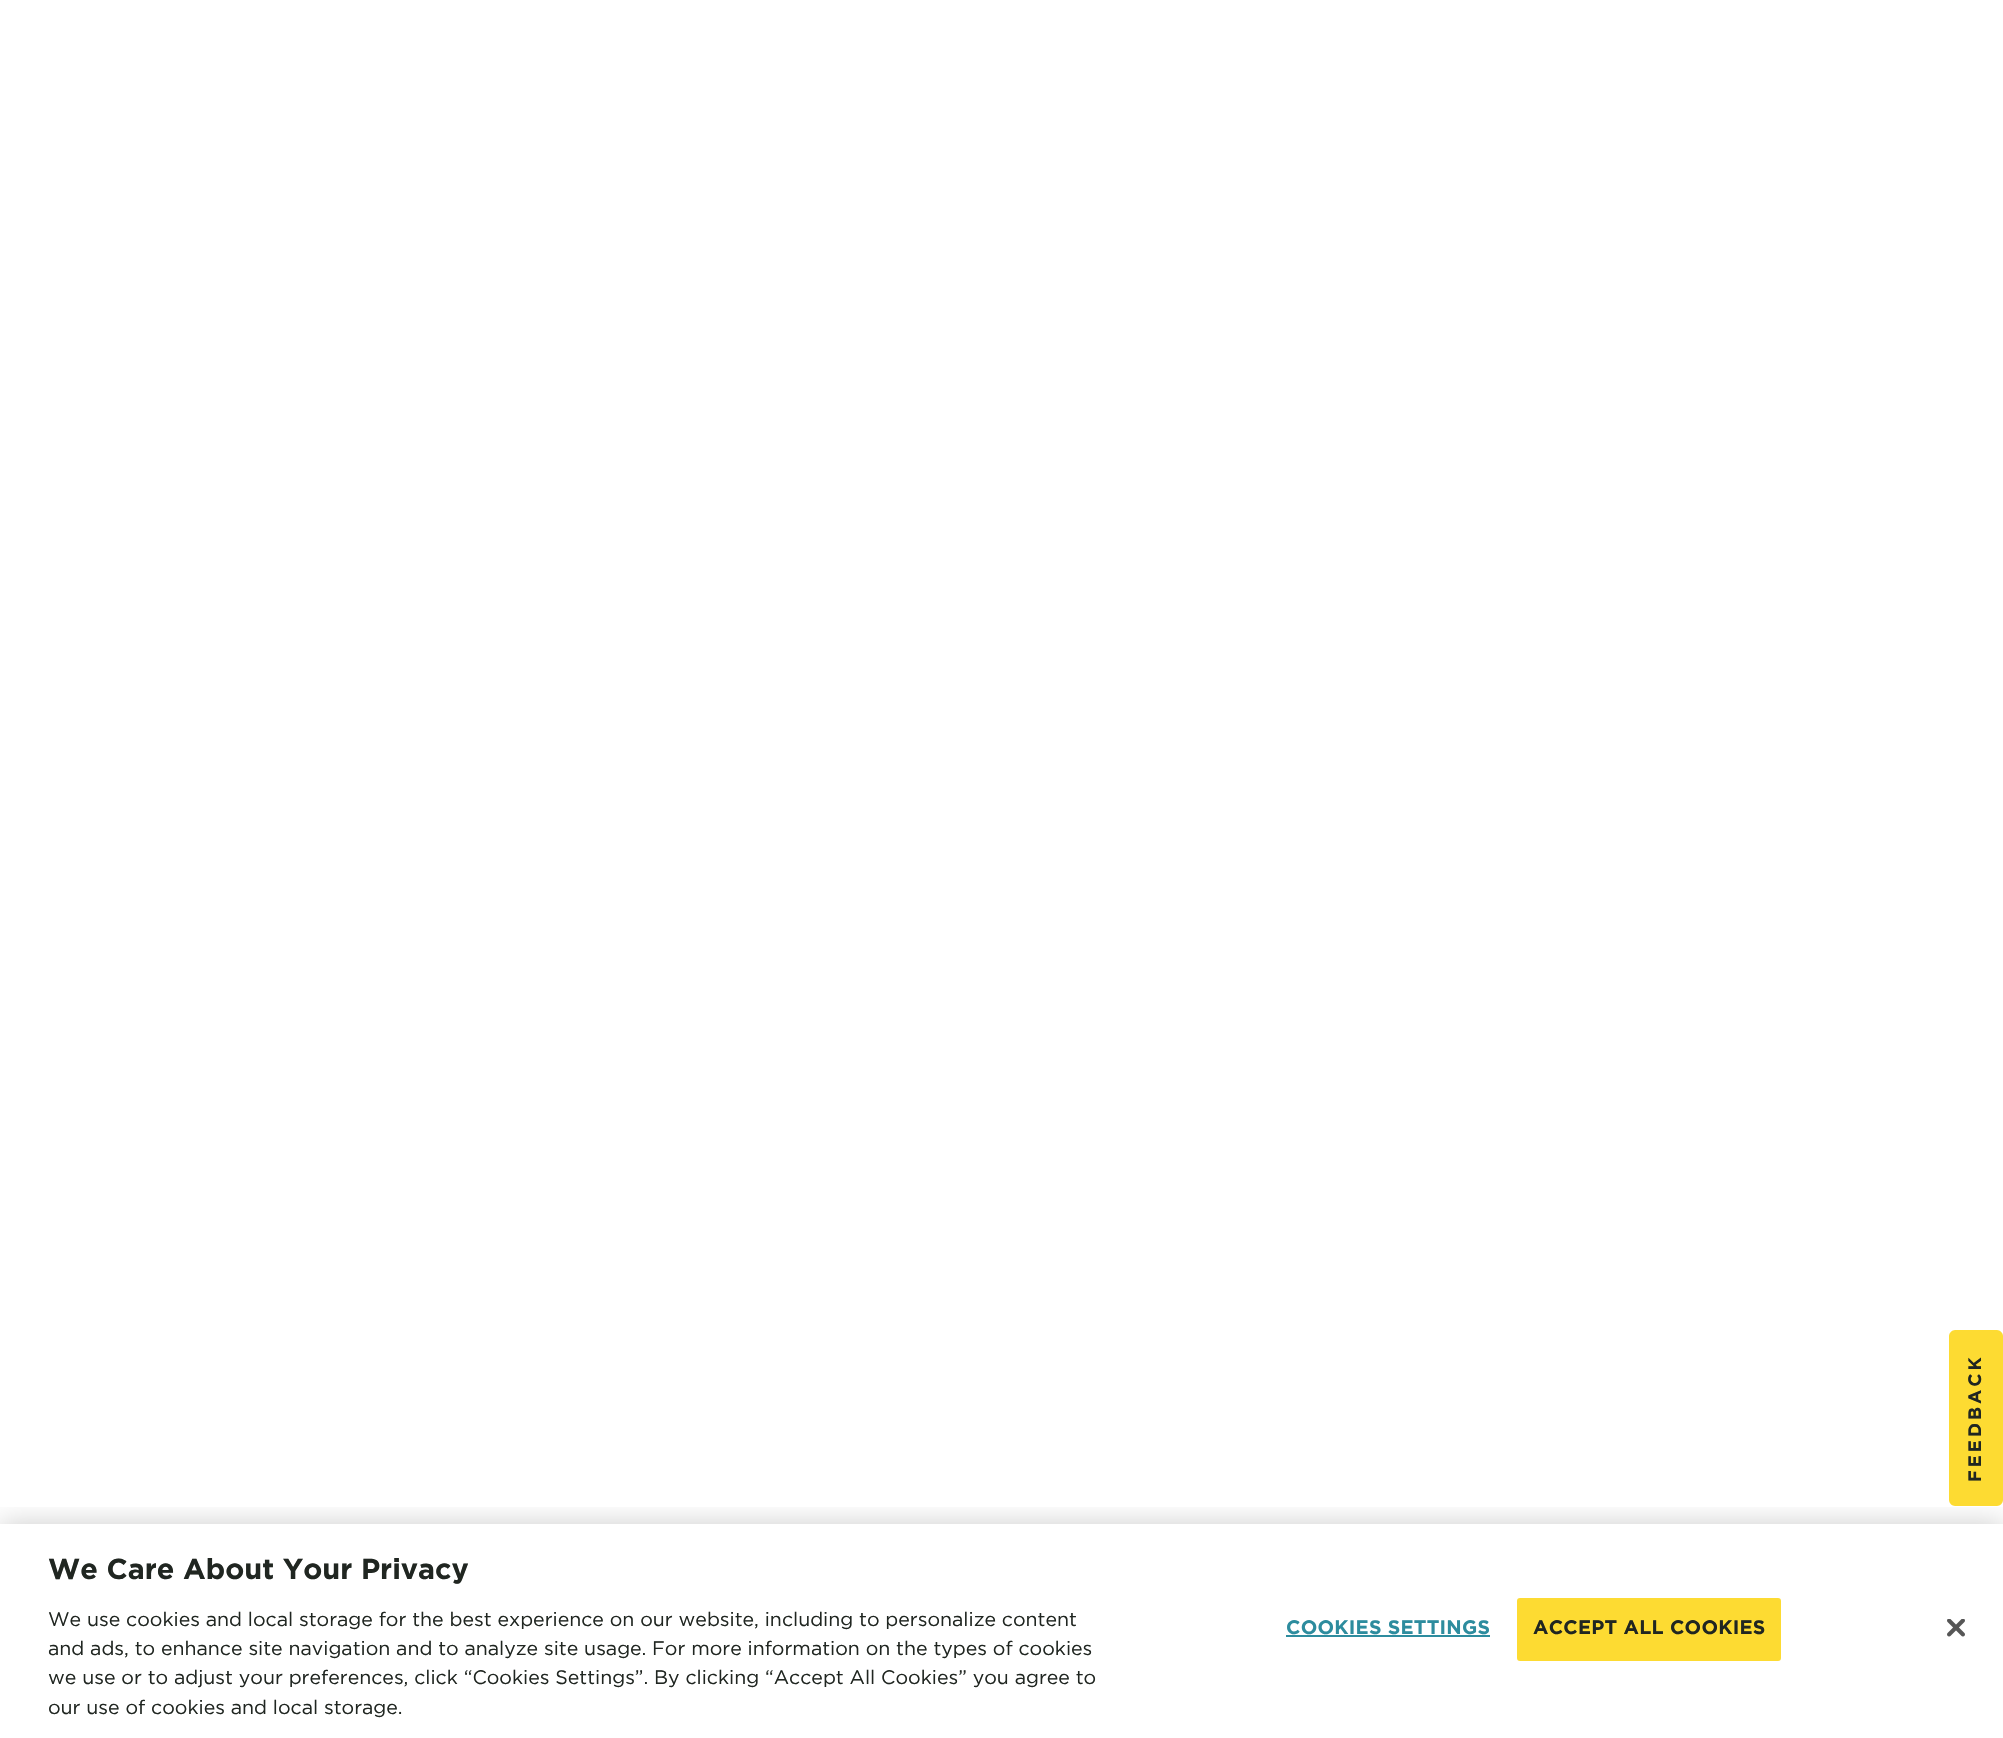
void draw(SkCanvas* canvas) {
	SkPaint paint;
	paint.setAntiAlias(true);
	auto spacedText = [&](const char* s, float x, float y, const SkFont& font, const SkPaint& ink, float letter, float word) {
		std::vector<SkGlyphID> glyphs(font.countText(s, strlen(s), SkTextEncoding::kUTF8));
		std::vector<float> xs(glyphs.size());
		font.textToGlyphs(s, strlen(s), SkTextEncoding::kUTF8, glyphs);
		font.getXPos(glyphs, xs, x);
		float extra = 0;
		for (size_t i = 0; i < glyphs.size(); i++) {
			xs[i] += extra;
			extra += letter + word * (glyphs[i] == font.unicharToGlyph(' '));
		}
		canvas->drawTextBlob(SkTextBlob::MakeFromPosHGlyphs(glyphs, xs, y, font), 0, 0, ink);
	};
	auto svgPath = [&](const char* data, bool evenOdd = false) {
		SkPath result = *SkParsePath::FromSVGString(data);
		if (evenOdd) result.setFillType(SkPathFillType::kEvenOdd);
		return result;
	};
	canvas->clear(0xffffffff);
	paint.setColor(0xfffddb32);
	canvas->drawPath(svgPath("M1949 1500V1336C1949 1333 1952 1330 1955 1330H1997C2000 1330 2003 1333 2003 1336V1500C2003 1503 2000 1506 1997 1506H1955C1952 1506 1949 1503 1949 1500Z"), paint);
	SkFont f1(fontMgr->matchFamilyStyle("Gotham", SkFontStyle::Bold()), 18);
	f1.setSubpixel(true);
	paint.setColor(0xff202621);
	canvas->save();
	canvas->rotate(-90, 1981, 1482);
	spacedText("FEEDBACK", 1981, 1482, f1, paint, 3, 0);
	canvas->restore();
	canvas->save();
	canvas->clipRect(SkRect::MakeXYWH(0, 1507, 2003, 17));
	paint.setColor(0x33000000);
	paint.setMaskFilter(SkMaskFilter::MakeBlur(kNormal_SkBlurStyle, 13.5));
	canvas->drawRect(SkRect::MakeXYWH(0, 1524, 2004, 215), paint);
	paint.setMaskFilter(nullptr);
	canvas->restore();
	SkFont f2(fontMgr->matchFamilyStyle("Gotham", SkFontStyle::Bold()), 28.75);
	f2.setSubpixel(true);
	paint.setColor(0xff202621);
	canvas->drawString("We Care About Your Privacy", 48, 1579, f2, paint);
	SkFont f3(fontMgr->matchFamilyStyle("Gotham", SkFontStyle::Normal()), 19.5);
	f3.setSubpixel(true);
	canvas->drawString("We use cookies and local storage for the best experience on our website, including to personalize content", 48, 1626, f3, paint);
	canvas->drawString("and ads, to enhance site navigation and to analyze site usage.", 48, 1655, f3, paint);
	canvas->drawString("For more information on the types of cookies", 652, 1655, f3, paint);
	canvas->drawString("we use or to adjust your preferences, click “Cookies Settings”.", 48, 1684, f3, paint);
	canvas->drawString("By clicking “Accept All Cookies” you agree to", 654, 1684, f3, paint);
	canvas->drawString("our use of cookies and local storage.", 48, 1714, f3, paint);
	SkFont f4(fontMgr->matchFamilyStyle("Gotham", SkFontStyle::Bold()), 19.5);
	f4.setSubpixel(true);
	paint.setColor(0xff2d8c9e);
	spacedText("COOKIES SETTINGS", 1286, 1634, f4, paint, 0.25, 0);
	canvas->drawRect(SkRect::MakeXYWH(1286, 1635, 204, 2), paint);
	paint.setColor(0xfffddb32);
	canvas->drawRoundRect(SkRect::MakeXYWH(1518, 1599, 262, 61), 2, 2, paint);
	paint.setStroke(true);
	paint.setStrokeWidth(2);
	canvas->drawRoundRect(SkRect::MakeXYWH(1518, 1599, 262, 61), 2, 2, paint);
	paint.setStroke(false);
	paint.setColor(0xff202621);
	spacedText("ACCEPT ALL COOKIES", 1533, 1634, f4, paint, 0.25, 0);
	canvas->drawImageRect(SkImages::DeferredFromEncodedData(SkData::MakeFromFileName("img1.png")), SkRect::MakeXYWH(1947, 1619, 18, 18), SkSamplingOptions());
}
